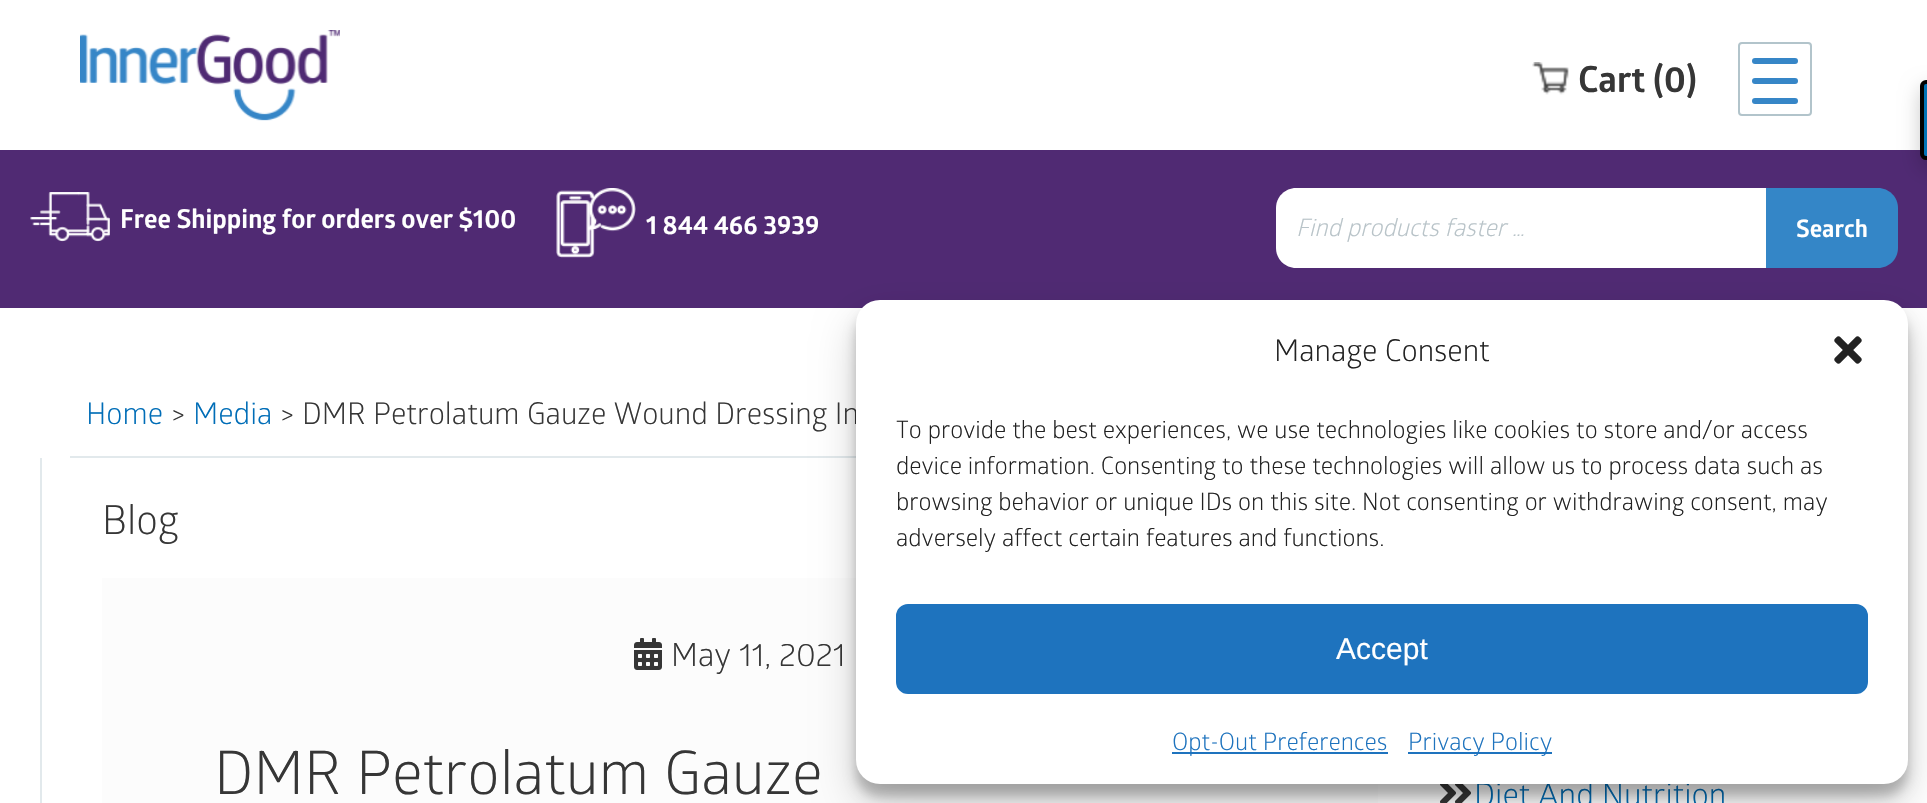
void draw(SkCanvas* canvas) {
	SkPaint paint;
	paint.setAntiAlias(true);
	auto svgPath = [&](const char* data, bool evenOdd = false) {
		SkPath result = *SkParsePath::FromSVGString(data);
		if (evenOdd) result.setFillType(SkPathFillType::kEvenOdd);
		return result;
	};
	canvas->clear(0xffffffff);
	canvas->drawImageRect(SkImages::DeferredFromEncodedData(SkData::MakeFromFileName("img1.png")), SkRect::MakeXYWH(80, 30, 260, 91), SkSamplingOptions());
	canvas->drawImageRect(SkImages::DeferredFromEncodedData(SkData::MakeFromFileName("img2.png")), SkRect::MakeXYWH(1532, 62, 37, 33), SkSamplingOptions());
	SkFont f1(fontMgr->matchFamilyStyle("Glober", SkFontStyle::Bold()), 36);
	f1.setSubpixel(true);
	paint.setColor(0xff363636);
	canvas->drawString("Cart (0)", 1578, 92, f1, paint);
	paint.setStroke(true);
	paint.setStrokeWidth(2);
	paint.setColor(0xffb2c4cb);
	canvas->drawRoundRect(SkRect::MakeXYWH(1739, 43, 72, 72), 3, 3, paint);
	paint.setStroke(false);
	paint.setColor(0xff3686c7);
	canvas->drawRoundRect(SkRect::MakeXYWH(1752, 78, 46, 6), 3, 3, paint);
	canvas->drawRoundRect(SkRect::MakeXYWH(1752, 58, 46, 6), 3, 3, paint);
	canvas->drawRoundRect(SkRect::MakeXYWH(1752, 98, 46, 6), 3, 3, paint);
	paint.setColor(0xff502a73);
	canvas->drawRect(SkRect::MakeXYWH(0, 150, 1927, 158), paint);
	paint.setColor(0xffffffff);
	canvas->drawPath(svgPath("M1296 188H1774V268H1296C1285 268 1276 259 1276 248V208C1276 197 1285 188 1296 188Z"), paint);
	paint.setColor(0xff3486c7);
	canvas->drawPath(svgPath("M1766 188H1878C1889 188 1898 197 1898 208V248C1898 259 1889 268 1878 268H1766Z"), paint);
	paint.setColor(0x33000000);
	paint.setMaskFilter(SkMaskFilter::MakeBlur(kNormal_SkBlurStyle, 10));
	canvas->drawRoundRect(SkRect::MakeXYWH(1920, 88, 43, 80), 6, 6, paint);
	paint.setMaskFilter(nullptr);
	paint.setColor(0xff0073b7);
	canvas->drawPath(svgPath("M1926 82H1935V158H1926C1924 158 1922 156 1922 154V86C1922 84 1924 82 1926 82Z"), paint);
	paint.setStroke(true);
	paint.setStrokeWidth(4);
	paint.setColor(0xff000000);
	canvas->drawPath(svgPath("M1926 82H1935V158H1926C1924 158 1922 156 1922 154V86C1922 84 1924 82 1926 82Z"), paint);
	canvas->drawImageRect(SkImages::DeferredFromEncodedData(SkData::MakeFromFileName("img3.png")), SkRect::MakeXYWH(30, 192, 80, 50), SkSamplingOptions());
	SkFont f2(fontMgr->matchFamilyStyle("Glober", SkFontStyle::Bold()), 26);
	f2.setSubpixel(true);
	paint.setStroke(false);
	paint.setColor(0xffffffff);
	canvas->drawString("Free Shipping for orders over $100", 120, 228, f2, paint);
	canvas->drawImageRect(SkImages::DeferredFromEncodedData(SkData::MakeFromFileName("img4.png")), SkRect::MakeXYWH(556, 188, 80, 70), SkSamplingOptions());
	canvas->drawString("1 844 466 3939", 646, 234, f2, paint);
	SkFont f3(fontMgr->matchFamilyStyle("Glober", SkFontStyle::Italic()), 24);
	f3.setSubpixel(true);
	paint.setColor(0xffb8c3c8);
	canvas->drawString("Find products faster …", 1296, 236, f3, paint);
	SkFont f4(fontMgr->matchFamilyStyle("Glober", SkFontStyle::Bold()), 24);
	f4.setSubpixel(true);
	paint.setColor(0xffffffff);
	canvas->drawString("Search", 1796, 237, f4, paint);
	paint.setColor(0xffe2e9ec);
	canvas->drawRect(SkRect::MakeXYWH(70, 456, 786, 2), paint);
	SkFont f5(fontMgr->matchFamilyStyle("Glober", SkFontStyle::Normal()), 30);
	f5.setSubpixel(true);
	paint.setColor(0xff006db7);
	canvas->drawString("Home", 86, 424, f5, paint);
	paint.setColor(0xff363636);
	canvas->drawString(">", 171, 424, f5, paint);
	paint.setColor(0xff006db7);
	canvas->drawString("Media", 193, 424, f5, paint);
	paint.setColor(0xff363636);
	canvas->drawString(">", 280, 424, f5, paint);
	canvas->drawString("DMR Petrolatum Gauze Wound Dressing In", 302, 424, f5, paint);
	paint.setColor(0xffe2e9ec);
	canvas->drawRect(SkRect::MakeXYWH(40, 458, 2, 345), paint);
	SkFont f6(fontMgr->matchFamilyStyle("Glober", SkFontStyle::Normal()), 40);
	f6.setSubpixel(true);
	paint.setColor(0xff363636);
	canvas->drawString("Blog", 102, 534, f6, paint);
	paint.setColor(0xfffcfcfc);
	canvas->drawRect(SkRect::MakeXYWH(102, 578, 1276, 225), paint);
	canvas->drawImageRect(SkImages::DeferredFromEncodedData(SkData::MakeFromFileName("img5.png")), SkRect::MakeXYWH(634, 638, 28, 32), SkSamplingOptions());
	SkFont f7(fontMgr->matchFamilyStyle("Glober", SkFontStyle::Normal()), 32);
	f7.setSubpixel(true);
	paint.setColor(0xff363636);
	canvas->drawString("May 11, 2021", 671, 666, f7, paint);
	SkFont f8(fontMgr->matchFamilyStyle("Glober", SkFontStyle::Normal()), 60);
	f8.setSubpixel(true);
	canvas->drawString("DMR Petrolatum Gauze", 214, 794, f8, paint);
	canvas->drawImageRect(SkImages::DeferredFromEncodedData(SkData::MakeFromFileName("img6.png")), SkRect::MakeXYWH(1440, 784, 31, 19), SkSamplingOptions());
	paint.setColor(0xff006db7);
	canvas->drawString("Diet And Nutrition", 1474, 806, f7, paint);
	paint.setColor(0x3b000000);
	paint.setMaskFilter(SkMaskFilter::MakeBlur(kNormal_SkBlurStyle, 6));
	canvas->drawRoundRect(SkRect::MakeXYWH(856, 312, 1052, 484), 24, 24, paint);
	paint.setMaskFilter(nullptr);
	paint.setColor(0x30000000);
	paint.setMaskFilter(SkMaskFilter::MakeBlur(kNormal_SkBlurStyle, 20));
	canvas->drawRoundRect(SkRect::MakeXYWH(856, 320, 1052, 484), 24, 24, paint);
	paint.setMaskFilter(nullptr);
	paint.setColor(0xffffffff);
	canvas->drawRoundRect(SkRect::MakeXYWH(856, 300, 1052, 484), 24, 24, paint);
	paint.setColor(0xff222222);
	canvas->drawString("Manage Consent", 1274, 361, f5, paint);
	canvas->drawImageRect(SkImages::DeferredFromEncodedData(SkData::MakeFromFileName("img7.png")), SkRect::MakeXYWH(1834, 336, 28, 28), SkSamplingOptions());
	SkFont f9(fontMgr->matchFamilyStyle("Glober", SkFontStyle::Normal()), 24);
	f9.setSubpixel(true);
	canvas->drawString("To provide the best experiences, we use technologies like cookies to store and/or access", 896, 438, f9, paint);
	canvas->drawString("device information. Consenting to these technologies will allow us to process data such as", 896, 474, f9, paint);
	canvas->drawString("browsing behavior or unique IDs on this site. Not consenting or withdrawing consent, may", 896, 510, f9, paint);
	canvas->drawString("adversely affect certain features and functions.", 896, 546, f9, paint);
	paint.setColor(0xff1e73be);
	canvas->drawRoundRect(SkRect::MakeXYWH(897, 605, 970, 88), 11, 11, paint);
	paint.setStroke(true);
	paint.setStrokeWidth(2);
	canvas->drawRoundRect(SkRect::MakeXYWH(897, 605, 970, 88), 11, 11, paint);
	SkFont f10(fontMgr->matchFamilyStyle("Liberation Sans", SkFontStyle::Normal()), 30);
	f10.setSubpixel(true);
	paint.setStroke(false);
	paint.setColor(0xffffffff);
	canvas->drawString("Accept", 1336, 659, f10, paint);
	paint.setColor(0xff1e73be);
	canvas->drawRect(SkRect::MakeXYWH(1172, 752, 216, 2), paint);
	canvas->drawString("Opt-Out Preferences", 1172, 750, f9, paint);
	canvas->drawRect(SkRect::MakeXYWH(1408, 752, 144, 2), paint);
	canvas->drawString("Privacy Policy", 1408, 750, f9, paint);
}
